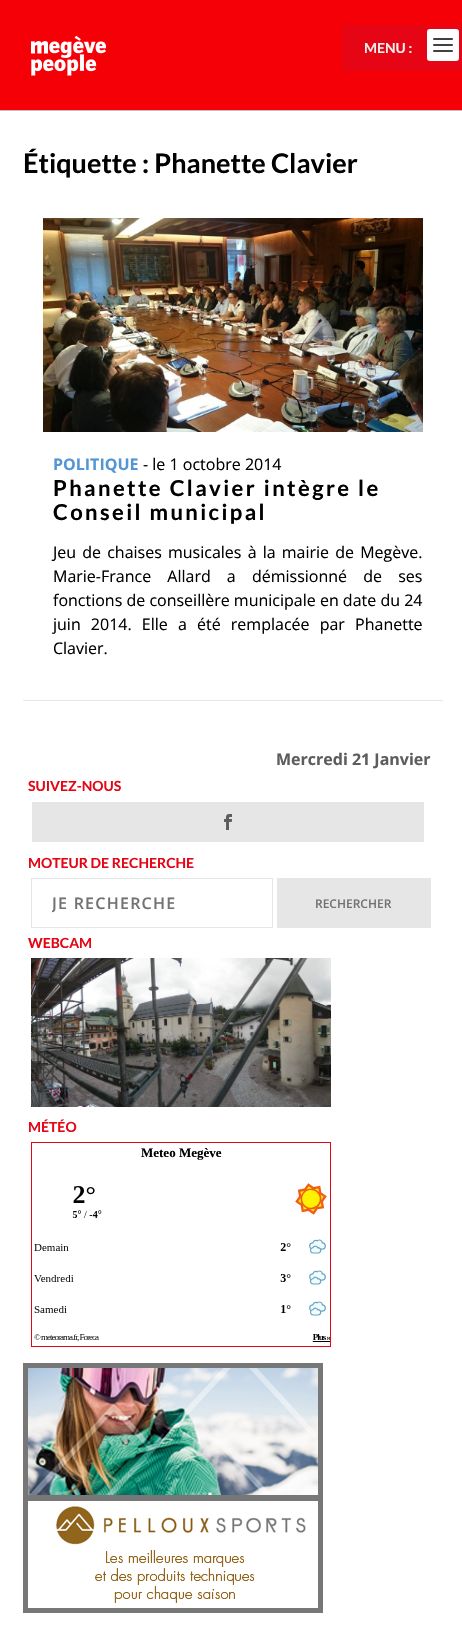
void draw(SkCanvas* canvas) {
	SkPaint paint;
	paint.setAntiAlias(true);
	auto spacedText = [&](const char* s, float x, float y, const SkFont& font, const SkPaint& ink, float letter, float word) {
		std::vector<SkGlyphID> glyphs(font.countText(s, strlen(s), SkTextEncoding::kUTF8));
		std::vector<float> xs(glyphs.size());
		font.textToGlyphs(s, strlen(s), SkTextEncoding::kUTF8, glyphs);
		font.getXPos(glyphs, xs, x);
		float extra = 0;
		for (size_t i = 0; i < glyphs.size(); i++) {
			xs[i] += extra;
			extra += letter + word * (glyphs[i] == font.unicharToGlyph(' '));
		}
		canvas->drawTextBlob(SkTextBlob::MakeFromPosHGlyphs(glyphs, xs, y, font), 0, 0, ink);
	};
	canvas->clear(0xffffffff);
	paint.setColor(0xfff60008);
	canvas->drawRect(SkRect::MakeXYWH(0, 0, 462, 110), paint);
	paint.setColor(0xffe50515);
	canvas->drawRect(SkRect::MakeXYWH(342, 25, 120, 46), paint);
	SkFont f1(fontMgr->matchFamilyStyle("Lato", SkFontStyle::Bold()), 14);
	f1.setSubpixel(true);
	paint.setColor(0xffeeeeee);
	canvas->drawString("MENU :", 364, 53, f1, paint);
	paint.setColor(0xffffffff);
	canvas->drawRoundRect(SkRect::MakeXYWH(427, 29, 32, 32), 3, 3, paint);
	paint.setColor(0xff404040);
	canvas->drawRoundRect(SkRect::MakeXYWH(433, 38, 20, 2), 1, 1, paint);
	canvas->drawRoundRect(SkRect::MakeXYWH(433, 44, 20, 2), 1, 1, paint);
	canvas->drawRoundRect(SkRect::MakeXYWH(433, 50, 20, 2), 1, 1, paint);
	canvas->drawImageRect(SkImages::DeferredFromEncodedData(SkData::MakeFromFileName("img1.png")), SkRect::MakeXYWH(31, 35, 75, 41), SkSamplingOptions());
	paint.setColor(0xffc0c0c0);
	canvas->drawRect(SkRect::MakeXYWH(0, 110, 462, 1), paint);
	SkFont f2(fontMgr->matchFamilyStyle("Lato", SkFontStyle::Bold()), 27);
	f2.setSubpixel(true);
	paint.setColor(0xff000000);
	canvas->drawString("Étiquette : Phanette Clavier", 23, 173, f2, paint);
	paint.setColor(0xffe6e6e6);
	canvas->drawRect(SkRect::MakeXYWH(23, 700, 420, 1), paint);
	canvas->drawImageRect(SkImages::DeferredFromEncodedData(SkData::MakeFromFileName("img2.png")), SkRect::MakeXYWH(43, 218, 380, 214), SkSamplingOptions());
	SkFont f3(fontMgr->matchFamilyStyle("Open Sans", SkFontStyle::Bold()), 16);
	f3.setSubpixel(true);
	paint.setColor(0xff5496d3);
	canvas->drawString("POLITIQUE", 53, 470, f3, paint);
	SkFont f4(fontMgr->matchFamilyStyle("Open Sans", SkFontStyle::Normal()), 16);
	f4.setSubpixel(true);
	paint.setColor(0xff000000);
	canvas->drawString("- le 1 octobre 2014", 143, 470, f4, paint);
	SkFont f5(fontMgr->matchFamilyStyle("Lato", SkFontStyle::Bold()), 22);
	f5.setSubpixel(true);
	spacedText("Phanette Clavier intègre le", 53, 496, f5, paint, 2.4, 0);
	spacedText("Conseil municipal", 53, 520, f5, paint, 2.4, 0);
	spacedText("Jeu de chaises musicales à la mairie de Megève.", 53, 558, f4, paint, 0, 2);
	spacedText("Marie-France Allard a démissionné de ses", 53, 582, f4, paint, 0, 12);
	canvas->drawString("fonctions de conseillère municipale en date du 24", 53, 606, f4, paint);
	spacedText("juin 2014. Elle a", 53, 630, f4, paint, 0, 6);
	spacedText("été remplacée par Phanette", 197, 630, f4, paint, 0, 6);
	canvas->drawString("Clavier.", 53, 654, f4, paint);
	paint.setColor(0xff5d5d5d);
	canvas->drawString("Mercredi 21 Janvier", 276, 765, f3, paint);
	paint.setColor(0xffe50515);
	canvas->drawString("SUIVEZ-NOUS", 28, 791, f1, paint);
	paint.setColor(0xffe6e6e6);
	canvas->drawRect(SkRect::MakeXYWH(32, 802, 392, 40), paint);
	canvas->drawImageRect(SkImages::DeferredFromEncodedData(SkData::MakeFromFileName("img3.png")), SkRect::MakeXYWH(224, 814, 8, 16), SkSamplingOptions());
	paint.setColor(0xffe50515);
	canvas->drawString("MOTEUR DE RECHERCHE", 28, 868, f1, paint);
	paint.setStroke(true);
	paint.setStrokeWidth(1);
	paint.setColor(0xffe6e6e6);
	canvas->drawRect(SkRect::MakeXYWH(31.5, 878.5, 241, 49), paint);
	canvas->save();
	canvas->clipRect(SkRect::MakeXYWH(52, 892, 200, 22));
	SkFont f6(fontMgr->matchFamilyStyle("Open Sans", SkFontStyle(600, SkFontStyle::kNormal_Width, SkFontStyle::kUpright_Slant)), 16);
	f6.setSubpixel(true);
	paint.setStroke(false);
	paint.setColor(0xff727272);
	spacedText("JE RECHERCHE", 52, 909, f6, paint, 1.25, 0);
	canvas->restore();
	paint.setColor(0xffe6e6e6);
	canvas->drawRect(SkRect::MakeXYWH(277, 878, 154, 50), paint);
	SkFont f7(fontMgr->matchFamilyStyle("Open Sans", SkFontStyle(600, SkFontStyle::kNormal_Width, SkFontStyle::kUpright_Slant)), 12);
	f7.setSubpixel(true);
	paint.setColor(0xff727272);
	canvas->drawString("RECHERCHER", 315, 908, f7, paint);
	paint.setColor(0xffe50515);
	canvas->drawString("WEBCAM", 28, 948, f1, paint);
	canvas->drawImageRect(SkImages::DeferredFromEncodedData(SkData::MakeFromFileName("img4.png")), SkRect::MakeXYWH(31, 958, 300, 149), SkSamplingOptions());
	canvas->drawString("MÉTÉO", 28, 1132, f1, paint);
	paint.setStroke(true);
	canvas->drawRect(SkRect::MakeXYWH(31.5, 1142.5, 299, 204), paint);
	SkFont f8(fontMgr->matchFamilyStyle("Liberation Serif", SkFontStyle::Bold()), 13);
	f8.setSubpixel(true);
	paint.setStroke(false);
	paint.setColor(0xff000000);
	canvas->drawString("Meteo Megève", 141, 1157, f8, paint);
	canvas->drawImageRect(SkImages::DeferredFromEncodedData(SkData::MakeFromFileName("img5.png")), SkRect::MakeXYWH(34, 1183, 296, 159), SkSamplingOptions());
	canvas->drawImageRect(SkImages::DeferredFromEncodedData(SkData::MakeFromFileName("img6.png")), SkRect::MakeXYWH(23, 1363, 300, 250), SkSamplingOptions());
}
